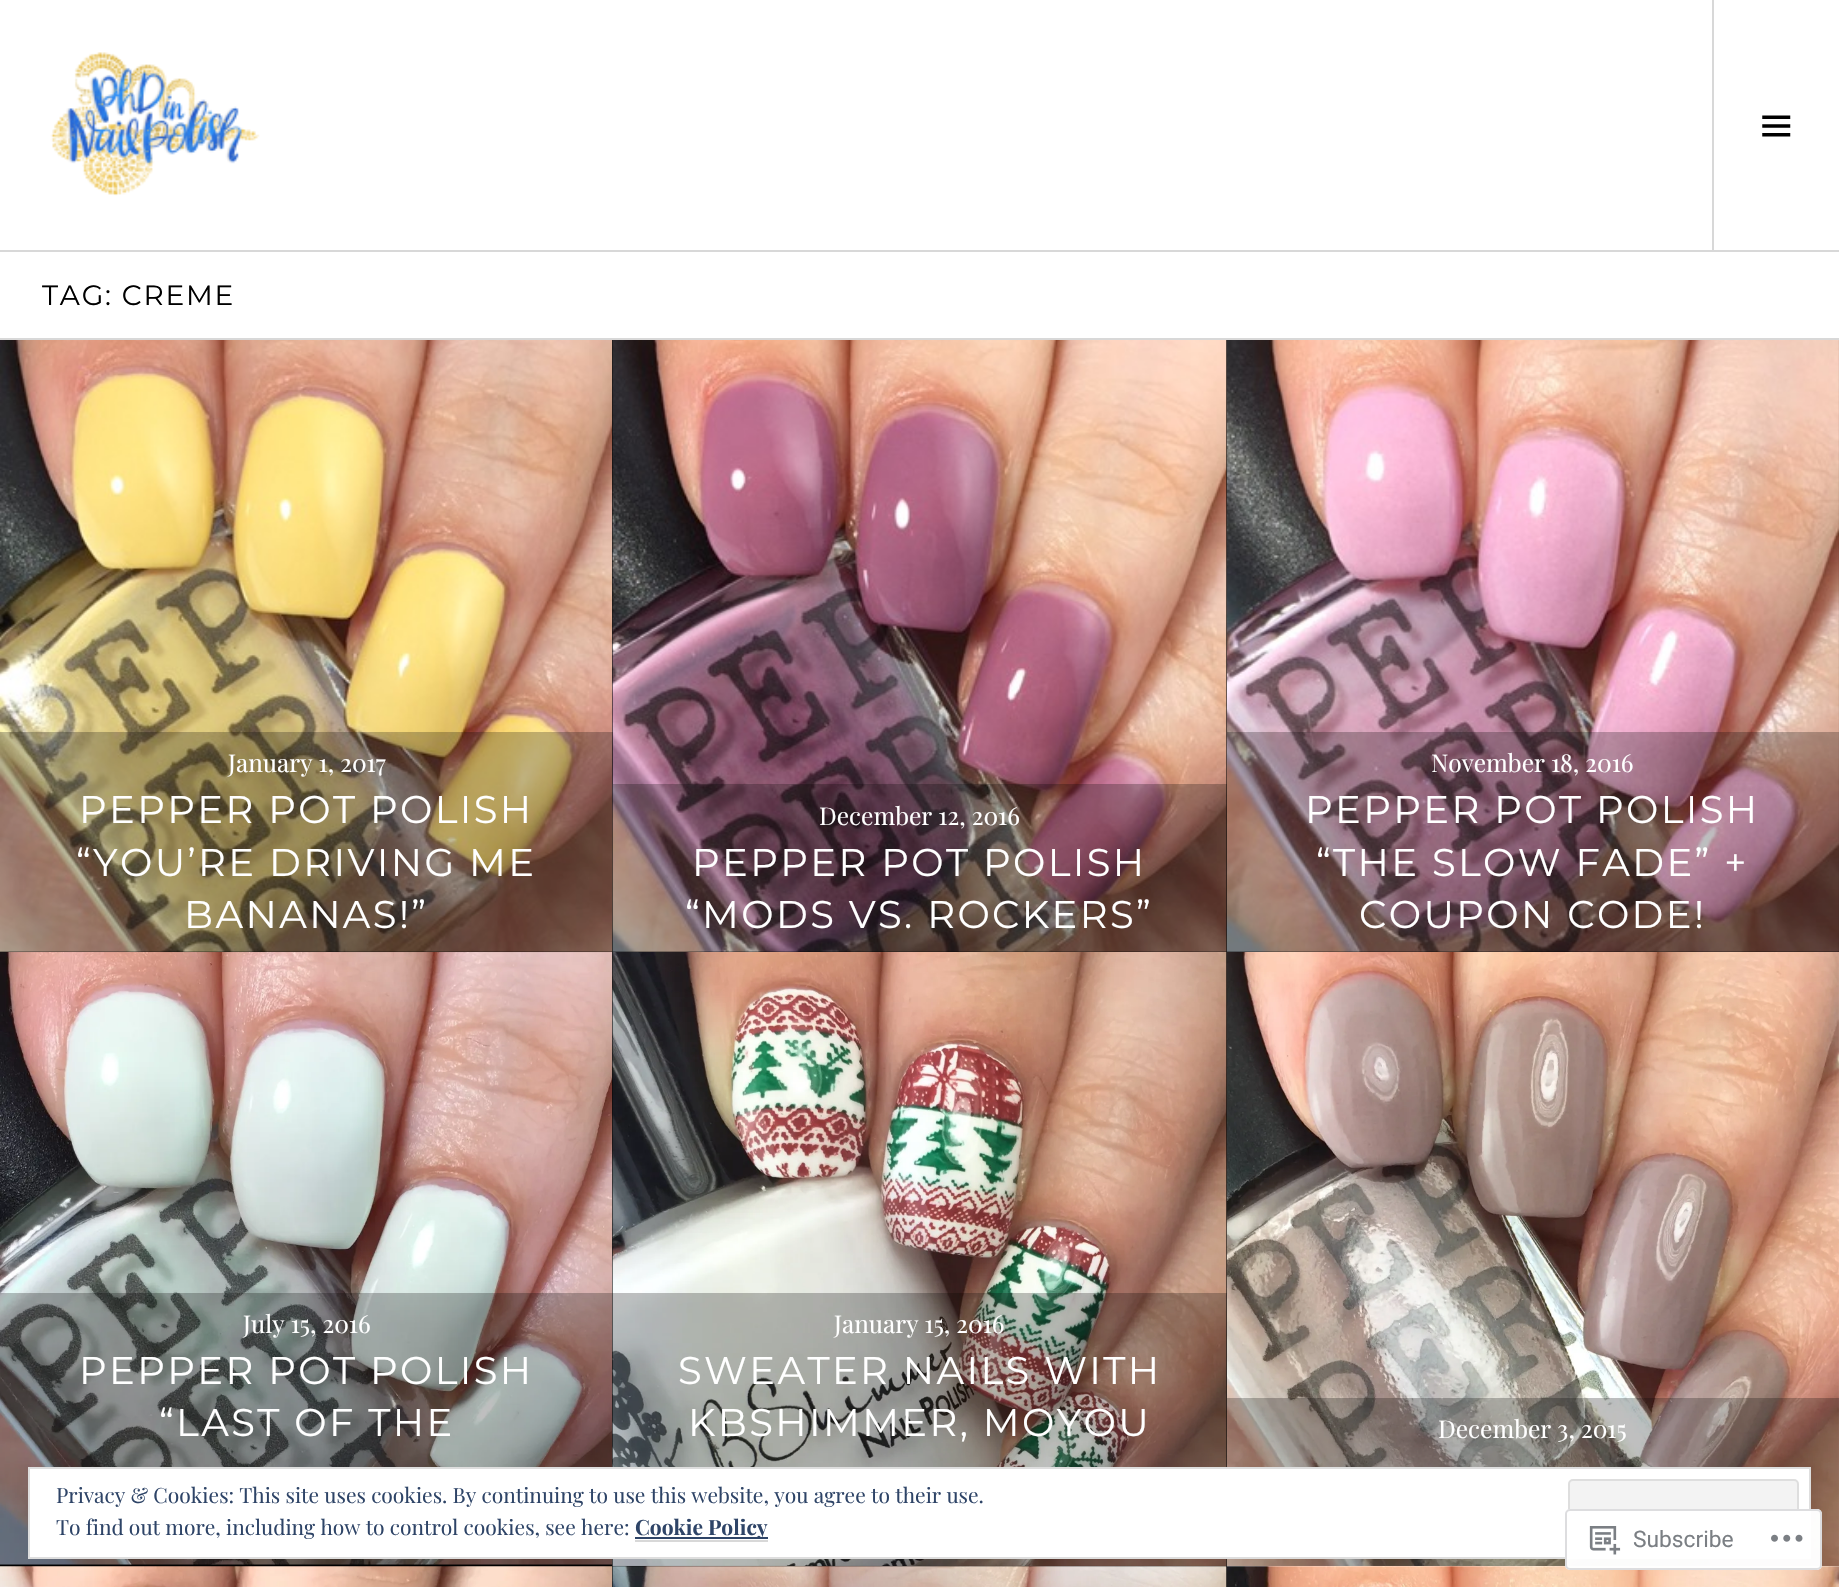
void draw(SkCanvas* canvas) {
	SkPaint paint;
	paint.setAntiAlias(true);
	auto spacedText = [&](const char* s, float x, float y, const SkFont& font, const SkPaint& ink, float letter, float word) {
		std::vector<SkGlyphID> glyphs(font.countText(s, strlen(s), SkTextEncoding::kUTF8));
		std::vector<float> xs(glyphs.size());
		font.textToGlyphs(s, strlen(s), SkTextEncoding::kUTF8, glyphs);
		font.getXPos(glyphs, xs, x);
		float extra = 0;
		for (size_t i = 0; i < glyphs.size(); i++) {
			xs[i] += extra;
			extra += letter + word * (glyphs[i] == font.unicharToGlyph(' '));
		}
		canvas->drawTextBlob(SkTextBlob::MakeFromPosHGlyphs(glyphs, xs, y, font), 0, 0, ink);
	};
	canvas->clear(0xffffffff);
	paint.setColor(0xffd8d8d8);
	canvas->drawRect(SkRect::MakeXYWH(0, 250, 1839, 2), paint);
	canvas->drawImageRect(SkImages::DeferredFromEncodedData(SkData::MakeFromFileName("img1.png")), SkRect::MakeXYWH(50, 52, 210, 144), SkSamplingOptions());
	canvas->drawRect(SkRect::MakeXYWH(1712, 0, 2, 250), paint);
	canvas->drawImageRect(SkImages::DeferredFromEncodedData(SkData::MakeFromFileName("img2.png")), SkRect::MakeXYWH(1762, 115, 29, 22), SkSamplingOptions());
	canvas->drawRect(SkRect::MakeXYWH(0, 338, 1839, 2), paint);
	SkFont f1(fontMgr->matchFamilyStyle("Montserrat", SkFontStyle::Normal()), 28);
	f1.setSubpixel(true);
	paint.setColor(0xff000000);
	spacedText("TAG: CREME", 42, 305, f1, paint, 1.75, 0);
	canvas->drawRect(SkRect::MakeXYWH(0, 340, 1839, 612), paint);
	canvas->drawImageRect(SkImages::DeferredFromEncodedData(SkData::MakeFromFileName("img3.png")), SkRect::MakeXYWH(0, 340, 613, 612), SkSamplingOptions());
	canvas->drawImageRect(SkImages::DeferredFromEncodedData(SkData::MakeFromFileName("img4.png")), SkRect::MakeXYWH(612, 340, 615, 612), SkSamplingOptions());
	paint.setColor(0x40000000);
	canvas->drawRect(SkRect::MakeXYWH(0, 732, 613, 220), paint);
	SkFont f2(fontMgr->matchFamilyStyle("Playfair Display", SkFontStyle::Normal()), 24.5);
	f2.setSubpixel(true);
	paint.setColor(0xffffffff);
	canvas->drawString("January 1, 2017", 228, 772, f2, paint);
	SkFont f3(fontMgr->matchFamilyStyle("Montserrat", SkFontStyle::Normal()), 38.5);
	f3.setSubpixel(true);
	spacedText("PEPPER POT POLISH", 79, 823, f3, paint, 2.4, 0);
	spacedText("“YOU’RE DRIVING ME", 76, 876, f3, paint, 2.4, 0);
	spacedText("BANANAS!”", 184, 928, f3, paint, 2.4, 0);
	canvas->drawImageRect(SkImages::DeferredFromEncodedData(SkData::MakeFromFileName("img5.png")), SkRect::MakeXYWH(1226, 340, 613, 612), SkSamplingOptions());
	paint.setColor(0x40000000);
	canvas->drawRect(SkRect::MakeXYWH(613, 784, 614, 168), paint);
	paint.setColor(0xffffffff);
	canvas->drawString("December 12, 2016", 819, 825, f2, paint);
	spacedText("PEPPER POT POLISH", 692, 876, f3, paint, 2.4, 0);
	spacedText("“MODS VS. ROCKERS”", 685, 928, f3, paint, 2.4, 0);
	paint.setColor(0x40000000);
	canvas->drawRect(SkRect::MakeXYWH(1227, 732, 612, 220), paint);
	paint.setColor(0xffffffff);
	canvas->drawString("November 18, 2016", 1431, 772, f2, paint);
	spacedText("PEPPER POT POLISH", 1305, 823, f3, paint, 2.4, 0);
	spacedText("“THE SLOW FADE” +", 1316, 876, f3, paint, 2.4, 0);
	spacedText("COUPON CODE!", 1359, 928, f3, paint, 2.4, 0);
	paint.setColor(0xff000000);
	canvas->drawRect(SkRect::MakeXYWH(0, 952, 1227, 614), paint);
	canvas->drawImageRect(SkImages::DeferredFromEncodedData(SkData::MakeFromFileName("img6.png")), SkRect::MakeXYWH(0, 952, 613, 613), SkSamplingOptions());
	canvas->drawImageRect(SkImages::DeferredFromEncodedData(SkData::MakeFromFileName("img7.png")), SkRect::MakeXYWH(612, 952, 615, 614), SkSamplingOptions());
	paint.setColor(0x40000000);
	canvas->drawRect(SkRect::MakeXYWH(0, 1293, 613, 273), paint);
	paint.setColor(0xffffffff);
	canvas->drawString("July 15, 2016", 243, 1333, f2, paint);
	spacedText("PEPPER POT POLISH", 79, 1384, f3, paint, 2.4, 0);
	spacedText("“LAST OF THE", 159, 1436, f3, paint, 2.4, 0);
	canvas->drawImageRect(SkImages::DeferredFromEncodedData(SkData::MakeFromFileName("img8.png")), SkRect::MakeXYWH(1226, 952, 613, 614), SkSamplingOptions());
	paint.setColor(0x40000000);
	canvas->drawRect(SkRect::MakeXYWH(613, 1293, 614, 273), paint);
	paint.setColor(0xffffffff);
	canvas->drawString("January 15, 2016", 834, 1333, f2, paint);
	spacedText("SWEATER NAILS WITH", 678, 1384, f3, paint, 2.4, 0);
	spacedText("KBSHIMMER, MOYOU", 688, 1436, f3, paint, 2.4, 0);
	paint.setColor(0x40000000);
	canvas->drawRect(SkRect::MakeXYWH(1227, 1398, 612, 168), paint);
	paint.setColor(0xffffffff);
	canvas->drawString("December 3, 2015", 1438, 1438, f2, paint);
	paint.setColor(0xff000000);
	canvas->drawRect(SkRect::MakeXYWH(0, 1566, 1227, 21), paint);
	canvas->drawImageRect(SkImages::DeferredFromEncodedData(SkData::MakeFromFileName("img9.png")), SkRect::MakeXYWH(0, 1566, 613, 21), SkSamplingOptions());
	canvas->drawImageRect(SkImages::DeferredFromEncodedData(SkData::MakeFromFileName("img10.png")), SkRect::MakeXYWH(612, 1566, 615, 21), SkSamplingOptions());
	canvas->drawImageRect(SkImages::DeferredFromEncodedData(SkData::MakeFromFileName("img11.png")), SkRect::MakeXYWH(1226, 1566, 613, 21), SkSamplingOptions());
	paint.setColor(0xffffffff);
	canvas->drawRect(SkRect::MakeXYWH(29, 1468, 1781, 90), paint);
	paint.setStroke(true);
	paint.setStrokeWidth(2);
	paint.setColor(0xffdedede);
	canvas->drawRect(SkRect::MakeXYWH(29, 1468, 1781, 90), paint);
	SkFont f4(fontMgr->matchFamilyStyle("Playfair Display", SkFontStyle::Normal()), 21);
	f4.setSubpixel(true);
	paint.setStroke(false);
	paint.setColor(0xff2e4467);
	canvas->drawString("Privacy & Cookies: This site uses cookies. By continuing to use this website, you agree to their use.", 56, 1503, f4, paint);
	paint.setColor(0xfff3f3f3);
	canvas->drawRoundRect(SkRect::MakeXYWH(1569, 1480, 229, 66), 4, 4, paint);
	paint.setStroke(true);
	paint.setColor(0xffdedede);
	canvas->drawRoundRect(SkRect::MakeXYWH(1569, 1480, 229, 66), 4, 4, paint);
	paint.setStroke(false);
	paint.setColor(0xff2e4467);
	canvas->drawString("To find out more, including how to control cookies, see here:", 56, 1535, f4, paint);
	canvas->drawRect(SkRect::MakeXYWH(635, 1537, 133, 2), paint);
	SkFont f5(fontMgr->matchFamilyStyle("Playfair Display", SkFontStyle::Bold()), 21);
	f5.setSubpixel(true);
	canvas->drawString("Cookie Policy", 635, 1535, f5, paint);
	paint.setColor(0xffd8d8d8);
	canvas->drawRect(SkRect::MakeXYWH(635, 1540, 133, 2), paint);
	paint.setColor(0xfaffffff);
	canvas->drawRoundRect(SkRect::MakeXYWH(1565, 1509, 257, 61), 5, 5, paint);
	paint.setStroke(true);
	paint.setColor(0xfadcdcde);
	canvas->drawRoundRect(SkRect::MakeXYWH(1566, 1510, 255, 59), 4, 4, paint);
	canvas->drawImageRect(SkImages::DeferredFromEncodedData(SkData::MakeFromFileName("img12.png")), SkRect::MakeXYWH(1589, 1526, 32, 29), SkSamplingOptions());
	SkFont f6(fontMgr->matchFamilyStyle("Roboto", SkFontStyle::Normal()), 22.75);
	f6.setSubpixel(true);
	paint.setStroke(false);
	paint.setColor(0xff7b7f84);
	canvas->drawString("Subscribe", 1633, 1547, f6, paint);
	canvas->drawImageRect(SkImages::DeferredFromEncodedData(SkData::MakeFromFileName("img13.png")), SkRect::MakeXYWH(1771, 1534, 32, 8), SkSamplingOptions());
}
